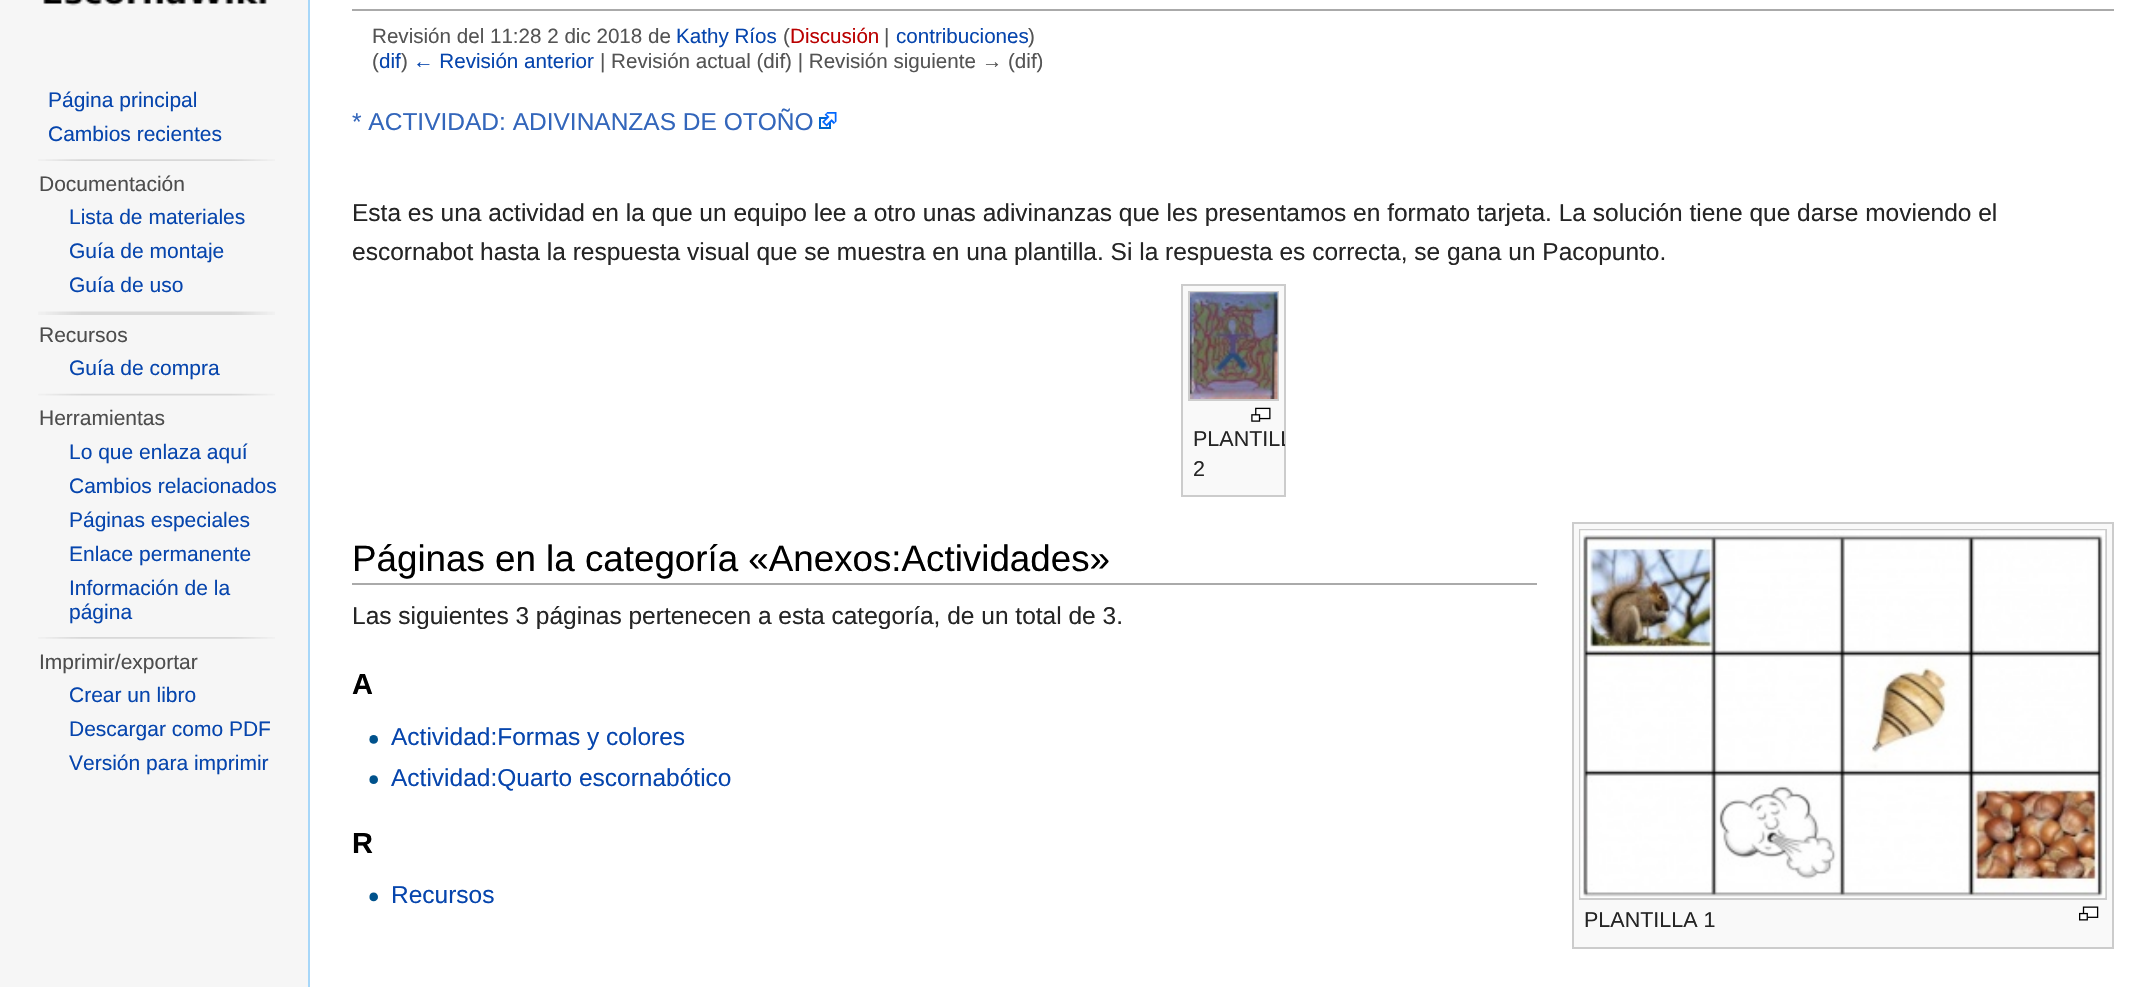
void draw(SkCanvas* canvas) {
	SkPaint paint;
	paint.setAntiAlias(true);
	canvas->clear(0xfff6f6f6);
	canvas->drawImageRect(SkImages::DeferredFromEncodedData(SkData::MakeFromFileName("img1.png")), SkRect::MakeXYWH(43, 0, 224, 6), SkSamplingOptions());
	SkFont f1(fontMgr->matchFamilyStyle("Liberation Sans", SkFontStyle::Normal()), 21);
	f1.setSubpixel(true);
	paint.setColor(0xff0645ad);
	canvas->drawString("Página principal", 48, 107, f1, paint);
	canvas->drawString("Cambios recientes", 48, 141, f1, paint);
	canvas->drawImageRect(SkImages::DeferredFromEncodedData(SkData::MakeFromFileName("img2.png")), SkRect::MakeXYWH(38, 159, 237, 2), SkSamplingOptions());
	paint.setColor(0xff4d4d4d);
	canvas->drawString("Documentación", 39, 191, f1, paint);
	paint.setColor(0xff0645ad);
	canvas->drawString("Lista de materiales", 69, 224, f1, paint);
	canvas->drawString("Guía de montaje", 69, 258, f1, paint);
	canvas->drawString("Guía de uso", 69, 292, f1, paint);
	canvas->drawImageRect(SkImages::DeferredFromEncodedData(SkData::MakeFromFileName("img3.png")), SkRect::MakeXYWH(38, 311, 237, 4), SkSamplingOptions());
	paint.setColor(0xff4d4d4d);
	canvas->drawString("Recursos", 39, 342, f1, paint);
	paint.setColor(0xff0645ad);
	canvas->drawString("Guía de compra", 69, 375, f1, paint);
	canvas->drawImageRect(SkImages::DeferredFromEncodedData(SkData::MakeFromFileName("img4.png")), SkRect::MakeXYWH(38, 393, 237, 3), SkSamplingOptions());
	paint.setColor(0xff4d4d4d);
	canvas->drawString("Herramientas", 39, 425, f1, paint);
	paint.setColor(0xff0645ad);
	canvas->drawString("Lo que enlaza aquí", 69, 459, f1, paint);
	canvas->drawString("Cambios relacionados", 69, 493, f1, paint);
	canvas->drawString("Páginas especiales", 69, 527, f1, paint);
	canvas->drawString("Enlace permanente", 69, 561, f1, paint);
	canvas->drawString("Información de la", 69, 595, f1, paint);
	canvas->drawString("página", 69, 619, f1, paint);
	canvas->drawImageRect(SkImages::DeferredFromEncodedData(SkData::MakeFromFileName("img5.png")), SkRect::MakeXYWH(38, 637, 237, 2), SkSamplingOptions());
	paint.setColor(0xff4d4d4d);
	canvas->drawString("Imprimir/exportar", 39, 669, f1, paint);
	paint.setColor(0xff0645ad);
	canvas->drawString("Crear un libro", 69, 702, f1, paint);
	canvas->drawString("Descargar como PDF", 69, 736, f1, paint);
	canvas->drawString("Versión para imprimir", 69, 770, f1, paint);
	paint.setColor(0xffffffff);
	canvas->drawRect(SkRect::MakeXYWH(310, 0, 1846, 987), paint);
	paint.setColor(0xffa7d7f9);
	canvas->drawRect(SkRect::MakeXYWH(308, 0, 2, 987), paint);
	paint.setColor(0xffaaaaaa);
	canvas->drawRect(SkRect::MakeXYWH(352, 9, 1762, 2), paint);
	SkFont f2(fontMgr->matchFamilyStyle("Liberation Sans", SkFontStyle::Normal()), 20.6);
	f2.setSubpixel(true);
	paint.setColor(0xff545454);
	canvas->drawString("Revisión del 11:28 2 dic 2018 de", 372, 43, f2, paint);
	paint.setColor(0xff0645ad);
	canvas->drawString("Kathy Ríos", 676, 43, f2, paint);
	paint.setColor(0xff545454);
	canvas->drawString("(", 783, 43, f2, paint);
	paint.setColor(0xffba0000);
	canvas->drawString("Discusión", 790, 43, f2, paint);
	paint.setColor(0xff545454);
	canvas->drawString("|", 884, 43, f2, paint);
	paint.setColor(0xff0645ad);
	canvas->drawString("contribuciones", 896, 43, f2, paint);
	paint.setColor(0xff545454);
	canvas->drawString(")", 1028, 43, f2, paint);
	canvas->drawString("(", 372, 68, f2, paint);
	paint.setColor(0xff0645ad);
	canvas->drawString("dif", 379, 68, f2, paint);
	paint.setColor(0xff545454);
	canvas->drawString(")", 401, 68, f2, paint);
	paint.setColor(0xff0645ad);
	canvas->drawString("← Revisión anterior", 413, 68, f2, paint);
	paint.setColor(0xff545454);
	canvas->drawString("| Revisión actual (dif) | Revisión siguiente → (dif)", 600, 68, f2, paint);
	SkFont f3(fontMgr->matchFamilyStyle("Liberation Sans", SkFontStyle::Normal()), 24.5);
	f3.setSubpixel(true);
	paint.setColor(0xff3366bb);
	canvas->drawString("* ACTIVIDAD: ADIVINANZAS DE OTOÑO", 352, 130, f3, paint);
	canvas->drawImageRect(SkImages::DeferredFromEncodedData(SkData::MakeFromFileName("img6.png")), SkRect::MakeXYWH(819, 112, 18, 17), SkSamplingOptions());
	paint.setColor(0xff252525);
	canvas->drawString("Esta es una actividad en la que un equipo lee a otro unas adivinanzas que les presentamos en formato tarjeta. La solución tiene que darse moviendo el", 352, 221, f3, paint);
	canvas->drawString("escornabot hasta la respuesta visual que se muestra en una plantilla. Si la respuesta es correcta, se gana un Pacopunto.", 352, 260, f3, paint);
	paint.setColor(0xfff9f9f9);
	canvas->drawRect(SkRect::MakeXYWH(1182, 285, 103, 211), paint);
	paint.setStroke(true);
	paint.setStrokeWidth(2);
	paint.setColor(0xffcccccc);
	canvas->drawRect(SkRect::MakeXYWH(1182, 285, 103, 211), paint);
	canvas->drawRect(SkRect::MakeXYWH(1189, 292, 89, 108), paint);
	canvas->drawImageRect(SkImages::DeferredFromEncodedData(SkData::MakeFromFileName("img7.png")), SkRect::MakeXYWH(1190, 292, 88, 107), SkSamplingOptions());
	canvas->drawImageRect(SkImages::DeferredFromEncodedData(SkData::MakeFromFileName("img8.png")), SkRect::MakeXYWH(1251, 407, 20, 15), SkSamplingOptions());
	canvas->save();
	canvas->clipRect(SkRect::MakeXYWH(1183, 285, 102, 210));
	SkFont f4(fontMgr->matchFamilyStyle("Liberation Sans", SkFontStyle::Normal()), 21.5);
	f4.setSubpixel(true);
	paint.setStroke(false);
	paint.setColor(0xff252525);
	canvas->drawString("PLANTILL", 1193, 446, f4, paint);
	canvas->restore();
	canvas->drawString("2", 1193, 476, f4, paint);
	paint.setColor(0xffaaaaaa);
	canvas->drawRect(SkRect::MakeXYWH(352, 583, 1185, 2), paint);
	SkFont f5(fontMgr->matchFamilyStyle("Liberation Sans", SkFontStyle::Normal()), 36.75);
	f5.setSubpixel(true);
	paint.setColor(0xff000000);
	canvas->drawString("Páginas en la categoría «Anexos:Actividades»", 352, 571, f5, paint);
	paint.setColor(0xff252525);
	canvas->drawString("Las siguientes 3 páginas pertenecen a esta categoría, de un total de 3.", 352, 624, f3, paint);
	SkFont f6(fontMgr->matchFamilyStyle("Liberation Sans", SkFontStyle::Bold()), 29);
	f6.setSubpixel(true);
	paint.setColor(0xff000000);
	canvas->drawString("A", 352, 694, f6, paint);
	canvas->drawImageRect(SkImages::DeferredFromEncodedData(SkData::MakeFromFileName("img9.png")), SkRect::MakeXYWH(369, 735, 9, 9), SkSamplingOptions());
	paint.setColor(0xff0645ad);
	canvas->drawString("Actividad:Formas y colores", 391, 745, f3, paint);
	canvas->drawImageRect(SkImages::DeferredFromEncodedData(SkData::MakeFromFileName("img10.png")), SkRect::MakeXYWH(369, 775, 9, 9), SkSamplingOptions());
	canvas->drawString("Actividad:Quarto escornabótico", 391, 786, f3, paint);
	paint.setColor(0xff000000);
	canvas->drawString("R", 352, 853, f6, paint);
	canvas->drawImageRect(SkImages::DeferredFromEncodedData(SkData::MakeFromFileName("img11.png")), SkRect::MakeXYWH(369, 892, 9, 10), SkSamplingOptions());
	paint.setColor(0xff0645ad);
	canvas->drawString("Recursos", 391, 903, f3, paint);
	paint.setColor(0xfff9f9f9);
	canvas->drawRect(SkRect::MakeXYWH(1573, 523, 540, 425), paint);
	paint.setStroke(true);
	paint.setColor(0xffcccccc);
	canvas->drawRect(SkRect::MakeXYWH(1573, 523, 540, 425), paint);
	canvas->drawRect(SkRect::MakeXYWH(1580, 530, 526, 369), paint);
	canvas->drawImageRect(SkImages::DeferredFromEncodedData(SkData::MakeFromFileName("img12.png")), SkRect::MakeXYWH(1580, 530, 526, 368), SkSamplingOptions());
	paint.setStroke(false);
	paint.setColor(0xff252525);
	canvas->drawString("PLANTILLA 1", 1584, 927, f4, paint);
	canvas->drawImageRect(SkImages::DeferredFromEncodedData(SkData::MakeFromFileName("img13.png")), SkRect::MakeXYWH(2079, 906, 20, 15), SkSamplingOptions());
}
